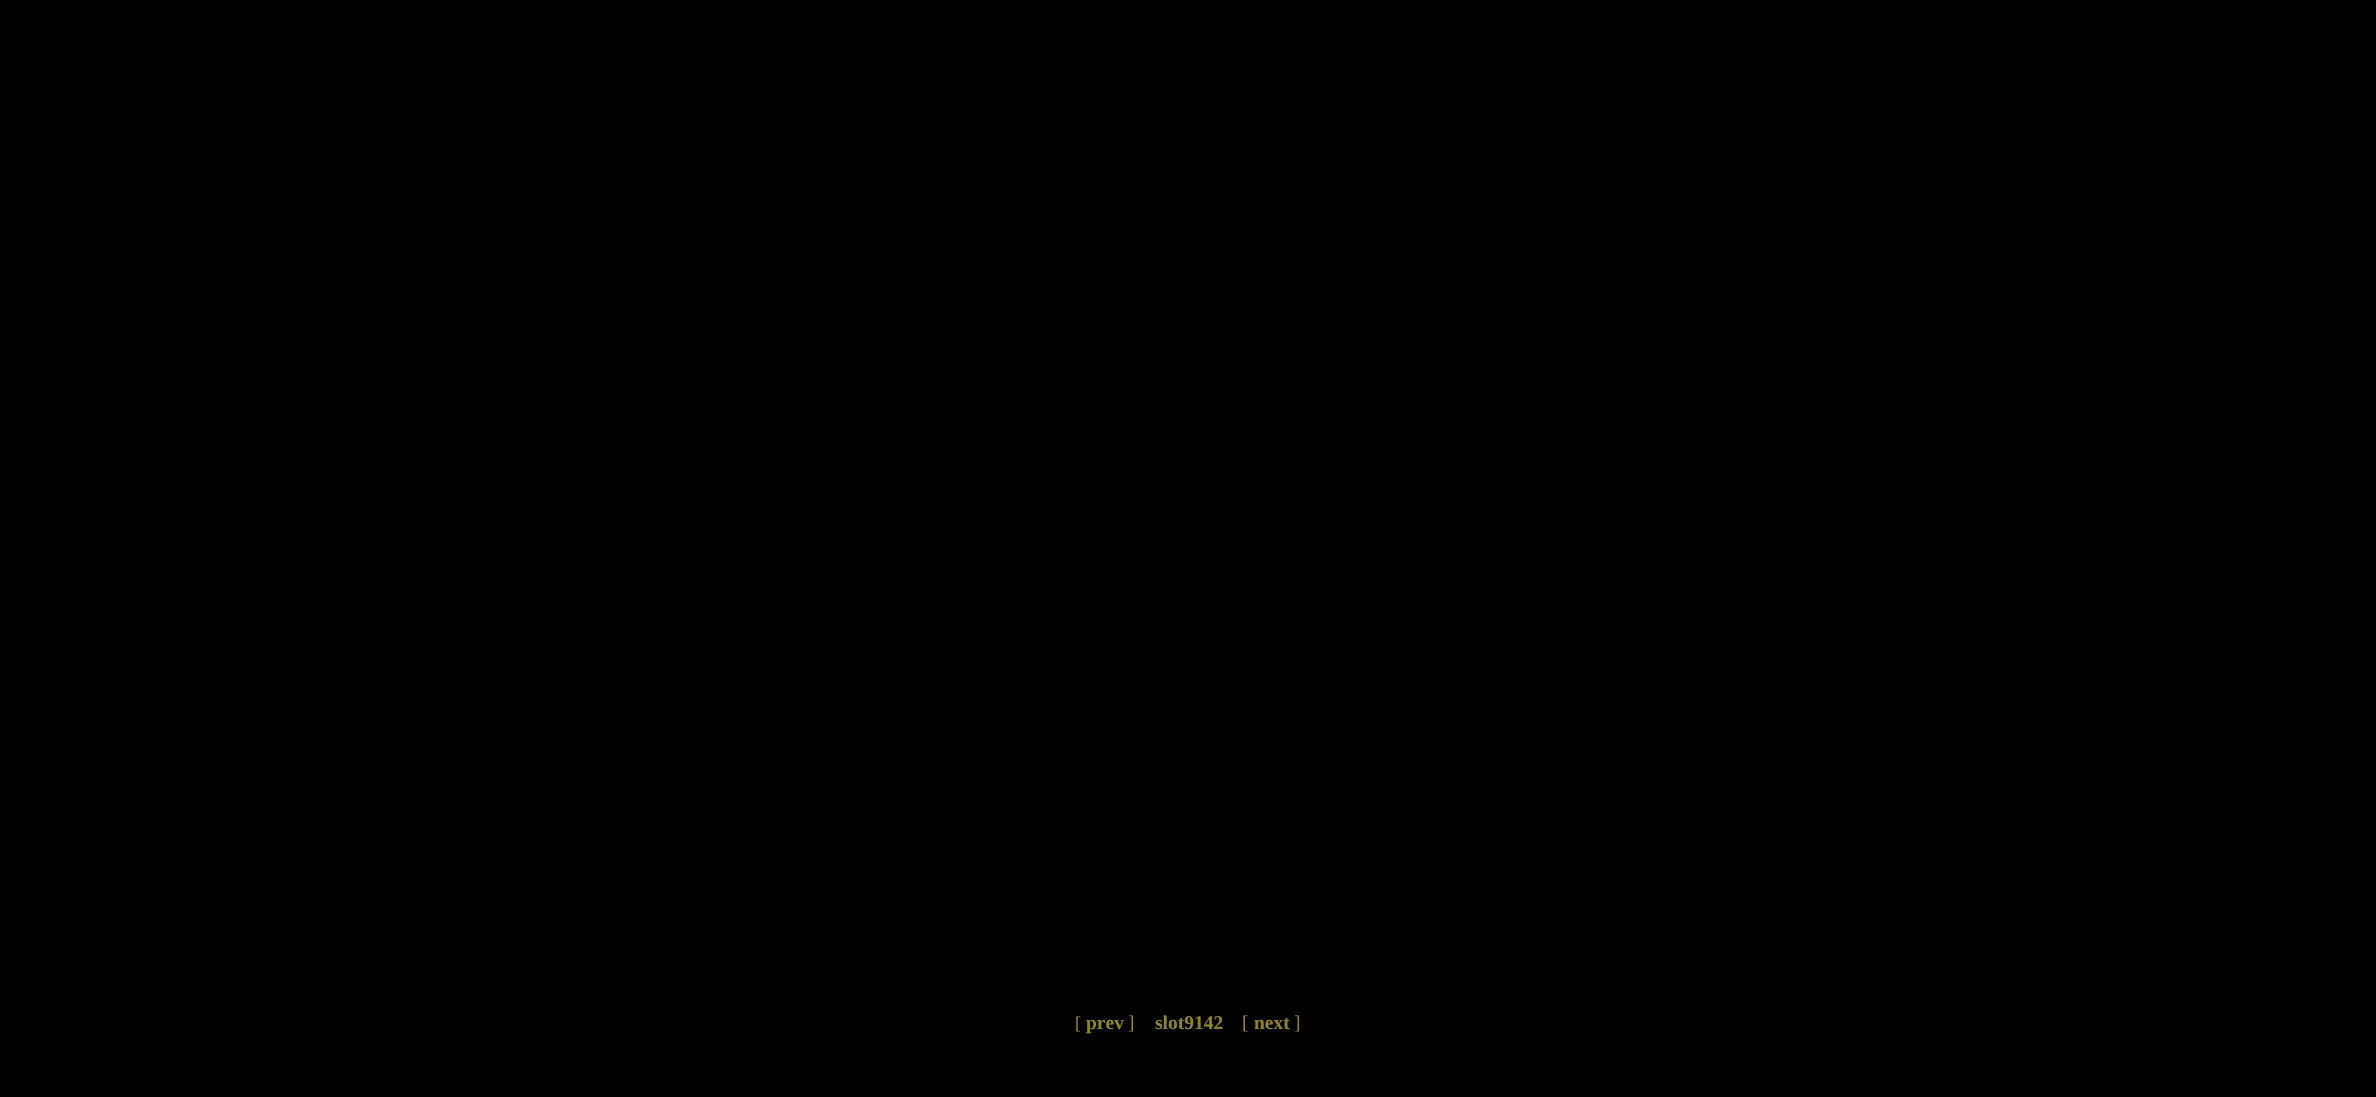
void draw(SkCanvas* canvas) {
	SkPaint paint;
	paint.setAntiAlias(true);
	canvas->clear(0xff000000);
	SkFont f1(fontMgr->matchFamilyStyle("Liberation Serif", SkFontStyle::Normal()), 18);
	f1.setSubpixel(true);
	paint.setColor(0xff92870d);
	canvas->drawString("[", 1075, 1029, f1, paint);
	SkFont f2(fontMgr->matchFamilyStyle("Liberation Serif", SkFontStyle::Bold()), 19.5);
	f2.setSubpixel(true);
	canvas->drawString("prev", 1086, 1029, f2, paint);
	SkFont f3(fontMgr->matchFamilyStyle("Liberation Serif", SkFontStyle::Normal()), 19.5);
	f3.setSubpixel(true);
	canvas->drawString("]", 1128, 1029, f3, paint);
	canvas->drawString("slot9142", 1155, 1029, f2, paint);
	canvas->drawString("[", 1242, 1029, f3, paint);
	canvas->drawString("next", 1254, 1029, f2, paint);
	canvas->drawString("]", 1294, 1029, f3, paint);
}
